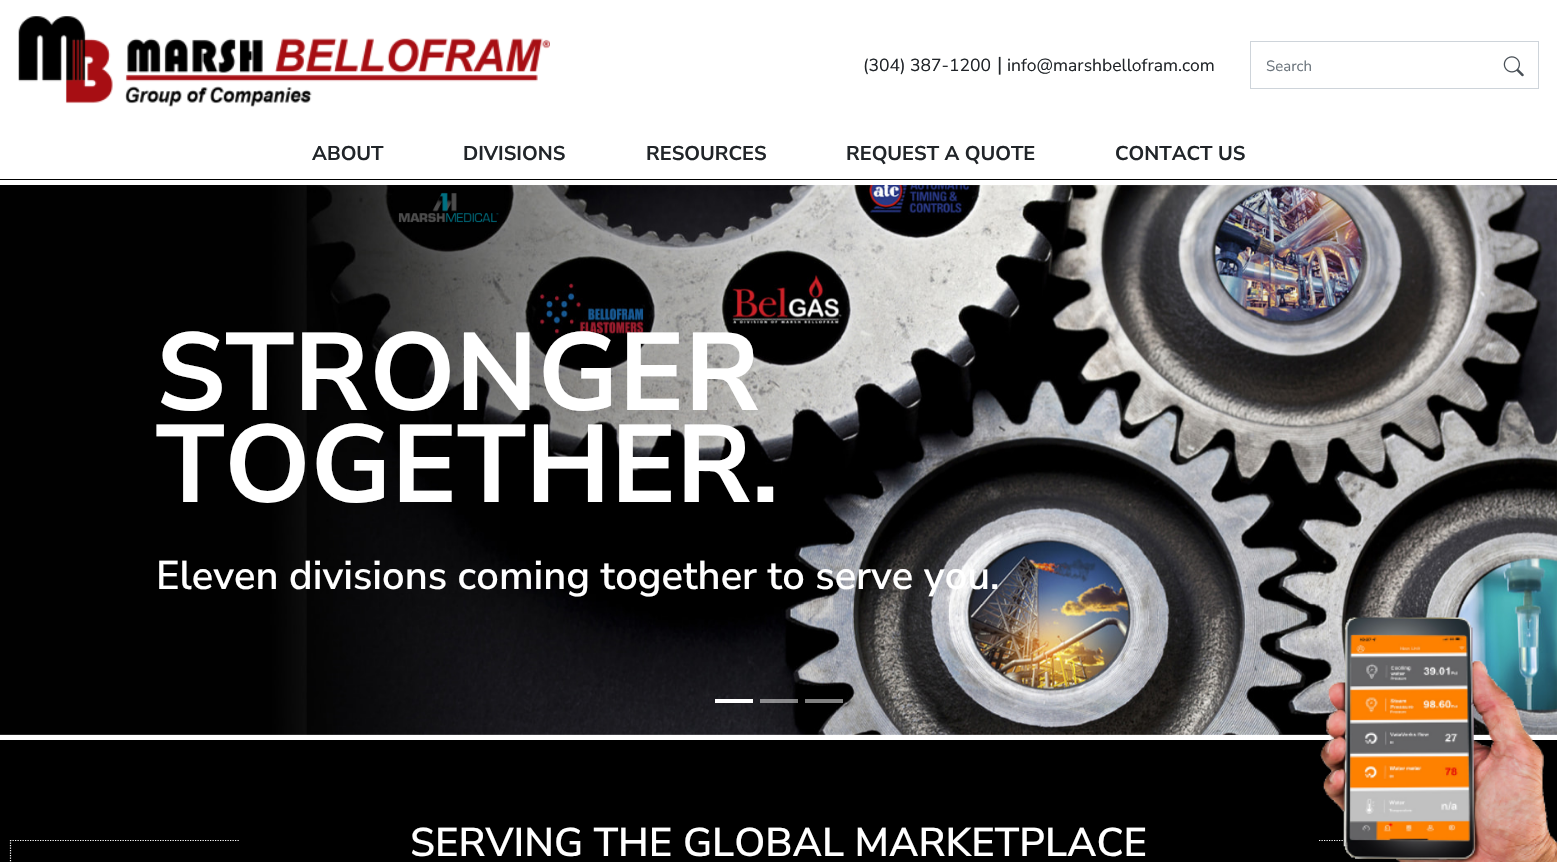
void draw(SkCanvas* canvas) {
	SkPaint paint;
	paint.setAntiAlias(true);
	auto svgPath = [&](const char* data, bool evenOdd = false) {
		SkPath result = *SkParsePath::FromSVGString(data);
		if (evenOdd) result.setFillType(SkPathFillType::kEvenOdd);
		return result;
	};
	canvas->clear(0xffffffff);
	paint.setColor(0xff000000);
	canvas->drawRect(SkRect::MakeXYWH(0, 179, 1557, 1), paint);
	canvas->drawImageRect(SkImages::DeferredFromEncodedData(SkData::MakeFromFileName("img1.png")), SkRect::MakeXYWH(18, 16, 532, 91), SkSamplingOptions());
	SkFont f1(fontMgr->matchFamilyStyle("Nunito Sans", SkFontStyle::Normal()), 17.5);
	f1.setSubpixel(true);
	paint.setColor(0xff212529);
	canvas->drawString("(304) 387-1200", 863, 71, f1, paint);
	SkFont f2(fontMgr->matchFamilyStyle("Nunito Sans", SkFontStyle::Normal()), 20);
	f2.setSubpixel(true);
	canvas->drawString("|", 997, 71, f2, paint);
	canvas->drawString("info@marshbellofram.com", 1007, 71, f1, paint);
	paint.setStroke(true);
	paint.setStrokeWidth(1);
	paint.setColor(0xffced4da);
	canvas->drawRect(SkRect::MakeXYWH(1250.5, 41.5, 288, 47), paint);
	SkFont f3(fontMgr->matchFamilyStyle("Nunito Sans", SkFontStyle::Normal()), 15);
	f3.setSubpixel(true);
	paint.setStroke(false);
	paint.setColor(0xff6c757d);
	canvas->drawString("Search", 1266, 71, f3, paint);
	canvas->drawImageRect(SkImages::DeferredFromEncodedData(SkData::MakeFromFileName("img2.png")), SkRect::MakeXYWH(1503, 56, 21, 21), SkSamplingOptions());
	SkFont f4(fontMgr->matchFamilyStyle("Nunito Sans", SkFontStyle::Bold()), 20);
	f4.setSubpixel(true);
	paint.setColor(0xff212529);
	canvas->drawString("ABOUT", 312, 160, f4, paint);
	canvas->drawString("DIVISIONS", 463, 160, f4, paint);
	canvas->drawString("RESOURCES", 646, 160, f4, paint);
	canvas->drawString("REQUEST A QUOTE", 846, 160, f4, paint);
	canvas->drawString("CONTACT US", 1115, 160, f4, paint);
	canvas->drawImageRect(SkImages::DeferredFromEncodedData(SkData::MakeFromFileName("img3.png")), SkRect::MakeXYWH(0, 185, 1557, 550), SkSamplingOptions());
	SkFont f5(fontMgr->matchFamilyStyle("Nunito Sans", SkFontStyle::Bold()), 110);
	f5.setSubpixel(true);
	paint.setColor(0xffffffff);
	canvas->drawString("STRONGER", 156, 410, f5, paint);
	canvas->drawString("TOGETHER.", 156, 502, f5, paint);
	SkFont f6(fontMgr->matchFamilyStyle("Nunito Sans", SkFontStyle(600, SkFontStyle::kNormal_Width, SkFontStyle::kUpright_Slant)), 40);
	f6.setSubpixel(true);
	canvas->drawString("Eleven divisions coming together to serve you.", 156, 589, f6, paint);
	canvas->drawRect(SkRect::MakeXYWH(715, 699, 38, 4), paint);
	paint.setColor(0x80ffffff);
	canvas->drawRect(SkRect::MakeXYWH(760, 699, 38, 4), paint);
	canvas->drawRect(SkRect::MakeXYWH(805, 699, 38, 4), paint);
	paint.setColor(0xff000000);
	canvas->drawRect(SkRect::MakeXYWH(0, 740, 1557, 122), paint);
	paint.setStroke(true);
	paint.setStrokeWidth(1.2);
	paint.setColor(0xffffffff);
	paint.setPathEffect(SkDashPathEffect::Make({{1.25f, 1.25f}}, 0));
	canvas->drawPath(svgPath("M10 840.5H789"), paint);
	paint.setPathEffect(nullptr);
	paint.setPathEffect(SkDashPathEffect::Make({{1.25f, 1.25f}}, 0));
	canvas->drawPath(svgPath("M769 840.5H1547.5"), paint);
	paint.setPathEffect(nullptr);
	paint.setStroke(false);
	paint.setColor(0xff000000);
	canvas->drawRect(SkRect::MakeXYWH(240, 839, 1078, 3), paint);
	paint.setColor(0xffffffff);
	canvas->drawString("SERVING THE GLOBAL MARKETPLACE", 410, 856, f6, paint);
	paint.setStroke(true);
	paint.setPathEffect(SkDashPathEffect::Make({{1.25f, 1.25f}}, 0));
	canvas->drawPath(svgPath("M10.5 840V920"), paint);
	paint.setPathEffect(nullptr);
	canvas->drawImageRect(SkImages::DeferredFromEncodedData(SkData::MakeFromFileName("img4.png")), SkRect::MakeXYWH(1320, 617, 237, 245), SkSamplingOptions());
}
